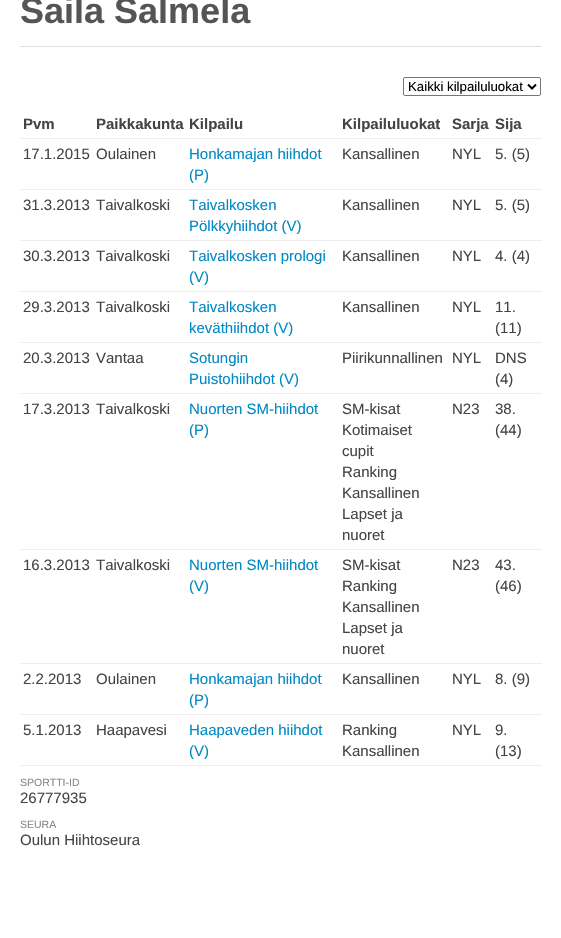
void draw(SkCanvas* canvas) {
	SkPaint paint;
	paint.setAntiAlias(true);
	auto svgPath = [&](const char* data, bool evenOdd = false) {
		SkPath result = *SkParsePath::FromSVGString(data);
		if (evenOdd) result.setFillType(SkPathFillType::kEvenOdd);
		return result;
	};
	canvas->clear(0xffffffff);
	paint.setColor(0xffdddddd);
	canvas->drawRect(SkRect::MakeXYWH(20, 46, 521, 1), paint);
	SkFont f1(fontMgr->matchFamilyStyle("Liberation Sans", SkFontStyle::Bold()), 36);
	f1.setSubpixel(true);
	paint.setColor(0xff555555);
	canvas->drawString("Saila Salmela", 20, 23, f1, paint);
	paint.setStroke(true);
	paint.setStrokeWidth(1);
	paint.setColor(0xff767676);
	canvas->drawRoundRect(SkRect::MakeXYWH(403.5, 77.5, 137, 18), 1.5, 1.5, paint);
	paint.setStrokeWidth(2);
	paint.setColor(0xff000000);
	canvas->drawPath(svgPath("M528 84.5L532 88.5L536 84.5"), paint);
	SkFont f2(fontMgr->matchFamilyStyle("Liberation Sans", SkFontStyle::Normal()), 13.25);
	f2.setSubpixel(true);
	paint.setStroke(false);
	canvas->drawString("Kaikki kilpailuluokat", 408, 91, f2, paint);
	SkFont f3(fontMgr->matchFamilyStyle("Liberation Sans", SkFontStyle::Bold()), 15);
	f3.setSubpixel(true);
	paint.setColor(0xff444444);
	canvas->drawString("Pvm", 23, 129, f3, paint);
	canvas->drawString("Paikkakunta", 96, 129, f3, paint);
	canvas->drawString("Kilpailu", 189, 129, f3, paint);
	canvas->drawString("Kilpailuluokat", 342, 129, f3, paint);
	canvas->drawString("Sarja", 452, 129, f3, paint);
	paint.setColor(0xffeeeeee);
	canvas->drawRect(SkRect::MakeXYWH(20, 138, 522, 1), paint);
	paint.setColor(0xff444444);
	canvas->drawString("Sija", 495, 129, f3, paint);
	SkFont f4(fontMgr->matchFamilyStyle("Liberation Sans", SkFontStyle::Normal()), 15);
	f4.setSubpixel(true);
	canvas->drawString("17.1.2015", 23, 159, f4, paint);
	canvas->drawString("Oulainen", 96, 159, f4, paint);
	paint.setColor(0xff0089c4);
	canvas->drawString("Honkamajan hiihdot", 189, 159, f4, paint);
	canvas->drawString("(P)", 189, 180, f4, paint);
	paint.setColor(0xff444444);
	canvas->drawString("Kansallinen", 342, 159, f4, paint);
	canvas->drawString("NYL", 452, 159, f4, paint);
	paint.setColor(0xffeeeeee);
	canvas->drawRect(SkRect::MakeXYWH(20, 189, 522, 1), paint);
	paint.setColor(0xff444444);
	canvas->drawString("5. (5)", 495, 159, f4, paint);
	canvas->drawString("31.3.2013", 23, 210, f4, paint);
	canvas->drawString("Taivalkoski", 96, 210, f4, paint);
	paint.setColor(0xff0089c4);
	canvas->drawString("Taivalkosken", 189, 210, f4, paint);
	canvas->drawString("Pölkkyhiihdot (V)", 189, 231, f4, paint);
	paint.setColor(0xff444444);
	canvas->drawString("Kansallinen", 342, 210, f4, paint);
	canvas->drawString("NYL", 452, 210, f4, paint);
	paint.setColor(0xffeeeeee);
	canvas->drawRect(SkRect::MakeXYWH(20, 240, 522, 1), paint);
	paint.setColor(0xff444444);
	canvas->drawString("5. (5)", 495, 210, f4, paint);
	canvas->drawString("30.3.2013", 23, 261, f4, paint);
	canvas->drawString("Taivalkoski", 96, 261, f4, paint);
	paint.setColor(0xff0089c4);
	canvas->drawString("Taivalkosken prologi", 189, 261, f4, paint);
	canvas->drawString("(V)", 189, 282, f4, paint);
	paint.setColor(0xff444444);
	canvas->drawString("Kansallinen", 342, 261, f4, paint);
	canvas->drawString("NYL", 452, 261, f4, paint);
	paint.setColor(0xffeeeeee);
	canvas->drawRect(SkRect::MakeXYWH(20, 291, 522, 1), paint);
	paint.setColor(0xff444444);
	canvas->drawString("4. (4)", 495, 261, f4, paint);
	canvas->drawString("29.3.2013", 23, 312, f4, paint);
	canvas->drawString("Taivalkoski", 96, 312, f4, paint);
	paint.setColor(0xff0089c4);
	canvas->drawString("Taivalkosken", 189, 312, f4, paint);
	canvas->drawString("keväthiihdot (V)", 189, 333, f4, paint);
	paint.setColor(0xff444444);
	canvas->drawString("Kansallinen", 342, 312, f4, paint);
	canvas->drawString("NYL", 452, 312, f4, paint);
	paint.setColor(0xffeeeeee);
	canvas->drawRect(SkRect::MakeXYWH(20, 342, 522, 1), paint);
	paint.setColor(0xff444444);
	canvas->drawString("11.", 495, 312, f4, paint);
	canvas->drawString("(11)", 495, 333, f4, paint);
	canvas->drawString("20.3.2013", 23, 363, f4, paint);
	canvas->drawString("Vantaa", 96, 363, f4, paint);
	paint.setColor(0xff0089c4);
	canvas->drawString("Sotungin", 189, 363, f4, paint);
	canvas->drawString("Puistohiihdot (V)", 189, 384, f4, paint);
	paint.setColor(0xff444444);
	canvas->drawString("Piirikunnallinen", 342, 363, f4, paint);
	canvas->drawString("NYL", 452, 363, f4, paint);
	paint.setColor(0xffeeeeee);
	canvas->drawRect(SkRect::MakeXYWH(20, 393, 522, 1), paint);
	paint.setColor(0xff444444);
	canvas->drawString("DNS", 495, 363, f4, paint);
	canvas->drawString("(4)", 495, 384, f4, paint);
	canvas->drawString("17.3.2013", 23, 414, f4, paint);
	canvas->drawString("Taivalkoski", 96, 414, f4, paint);
	paint.setColor(0xff0089c4);
	canvas->drawString("Nuorten SM-hiihdot", 189, 414, f4, paint);
	canvas->drawString("(P)", 189, 435, f4, paint);
	paint.setColor(0xff444444);
	canvas->drawString("SM-kisat", 342, 414, f4, paint);
	canvas->drawString("Kotimaiset", 342, 435, f4, paint);
	canvas->drawString("cupit", 342, 456, f4, paint);
	canvas->drawString("Ranking", 342, 477, f4, paint);
	canvas->drawString("Kansallinen", 342, 498, f4, paint);
	canvas->drawString("Lapset ja", 342, 519, f4, paint);
	canvas->drawString("nuoret", 342, 540, f4, paint);
	canvas->drawString("N23", 452, 414, f4, paint);
	paint.setColor(0xffeeeeee);
	canvas->drawRect(SkRect::MakeXYWH(20, 549, 522, 1), paint);
	paint.setColor(0xff444444);
	canvas->drawString("38.", 495, 414, f4, paint);
	canvas->drawString("(44)", 495, 435, f4, paint);
	canvas->drawString("16.3.2013", 23, 570, f4, paint);
	canvas->drawString("Taivalkoski", 96, 570, f4, paint);
	paint.setColor(0xff0089c4);
	canvas->drawString("Nuorten SM-hiihdot", 189, 570, f4, paint);
	canvas->drawString("(V)", 189, 591, f4, paint);
	paint.setColor(0xff444444);
	canvas->drawString("SM-kisat", 342, 570, f4, paint);
	canvas->drawString("Ranking", 342, 591, f4, paint);
	canvas->drawString("Kansallinen", 342, 612, f4, paint);
	canvas->drawString("Lapset ja", 342, 633, f4, paint);
	canvas->drawString("nuoret", 342, 654, f4, paint);
	canvas->drawString("N23", 452, 570, f4, paint);
	paint.setColor(0xffeeeeee);
	canvas->drawRect(SkRect::MakeXYWH(20, 663, 522, 1), paint);
	paint.setColor(0xff444444);
	canvas->drawString("43.", 495, 570, f4, paint);
	canvas->drawString("(46)", 495, 591, f4, paint);
	canvas->drawString("2.2.2013", 23, 684, f4, paint);
	canvas->drawString("Oulainen", 96, 684, f4, paint);
	paint.setColor(0xff0089c4);
	canvas->drawString("Honkamajan hiihdot", 189, 684, f4, paint);
	canvas->drawString("(P)", 189, 705, f4, paint);
	paint.setColor(0xff444444);
	canvas->drawString("Kansallinen", 342, 684, f4, paint);
	canvas->drawString("NYL", 452, 684, f4, paint);
	paint.setColor(0xffeeeeee);
	canvas->drawRect(SkRect::MakeXYWH(20, 714, 522, 1), paint);
	paint.setColor(0xff444444);
	canvas->drawString("8. (9)", 495, 684, f4, paint);
	canvas->drawString("5.1.2013", 23, 735, f4, paint);
	canvas->drawString("Haapavesi", 96, 735, f4, paint);
	paint.setColor(0xff0089c4);
	canvas->drawString("Haapaveden hiihdot", 189, 735, f4, paint);
	canvas->drawString("(V)", 189, 756, f4, paint);
	paint.setColor(0xff444444);
	canvas->drawString("Ranking", 342, 735, f4, paint);
	canvas->drawString("Kansallinen", 342, 756, f4, paint);
	canvas->drawString("NYL", 452, 735, f4, paint);
	paint.setColor(0xffeeeeee);
	canvas->drawRect(SkRect::MakeXYWH(20, 765, 522, 1), paint);
	paint.setColor(0xff444444);
	canvas->drawString("9.", 495, 735, f4, paint);
	canvas->drawString("(13)", 495, 756, f4, paint);
	SkFont f5(fontMgr->matchFamilyStyle("Liberation Sans", SkFontStyle::Normal()), 10.5);
	f5.setSubpixel(true);
	paint.setColor(0xff888888);
	canvas->drawString("SPORTTI-ID", 20, 786, f5, paint);
	paint.setColor(0xff444444);
	canvas->drawString("26777935", 20, 803, f4, paint);
	paint.setColor(0xff888888);
	canvas->drawString("SEURA", 20, 828, f5, paint);
	paint.setColor(0xff444444);
	canvas->drawString("Oulun Hiihtoseura", 20, 845, f4, paint);
}
